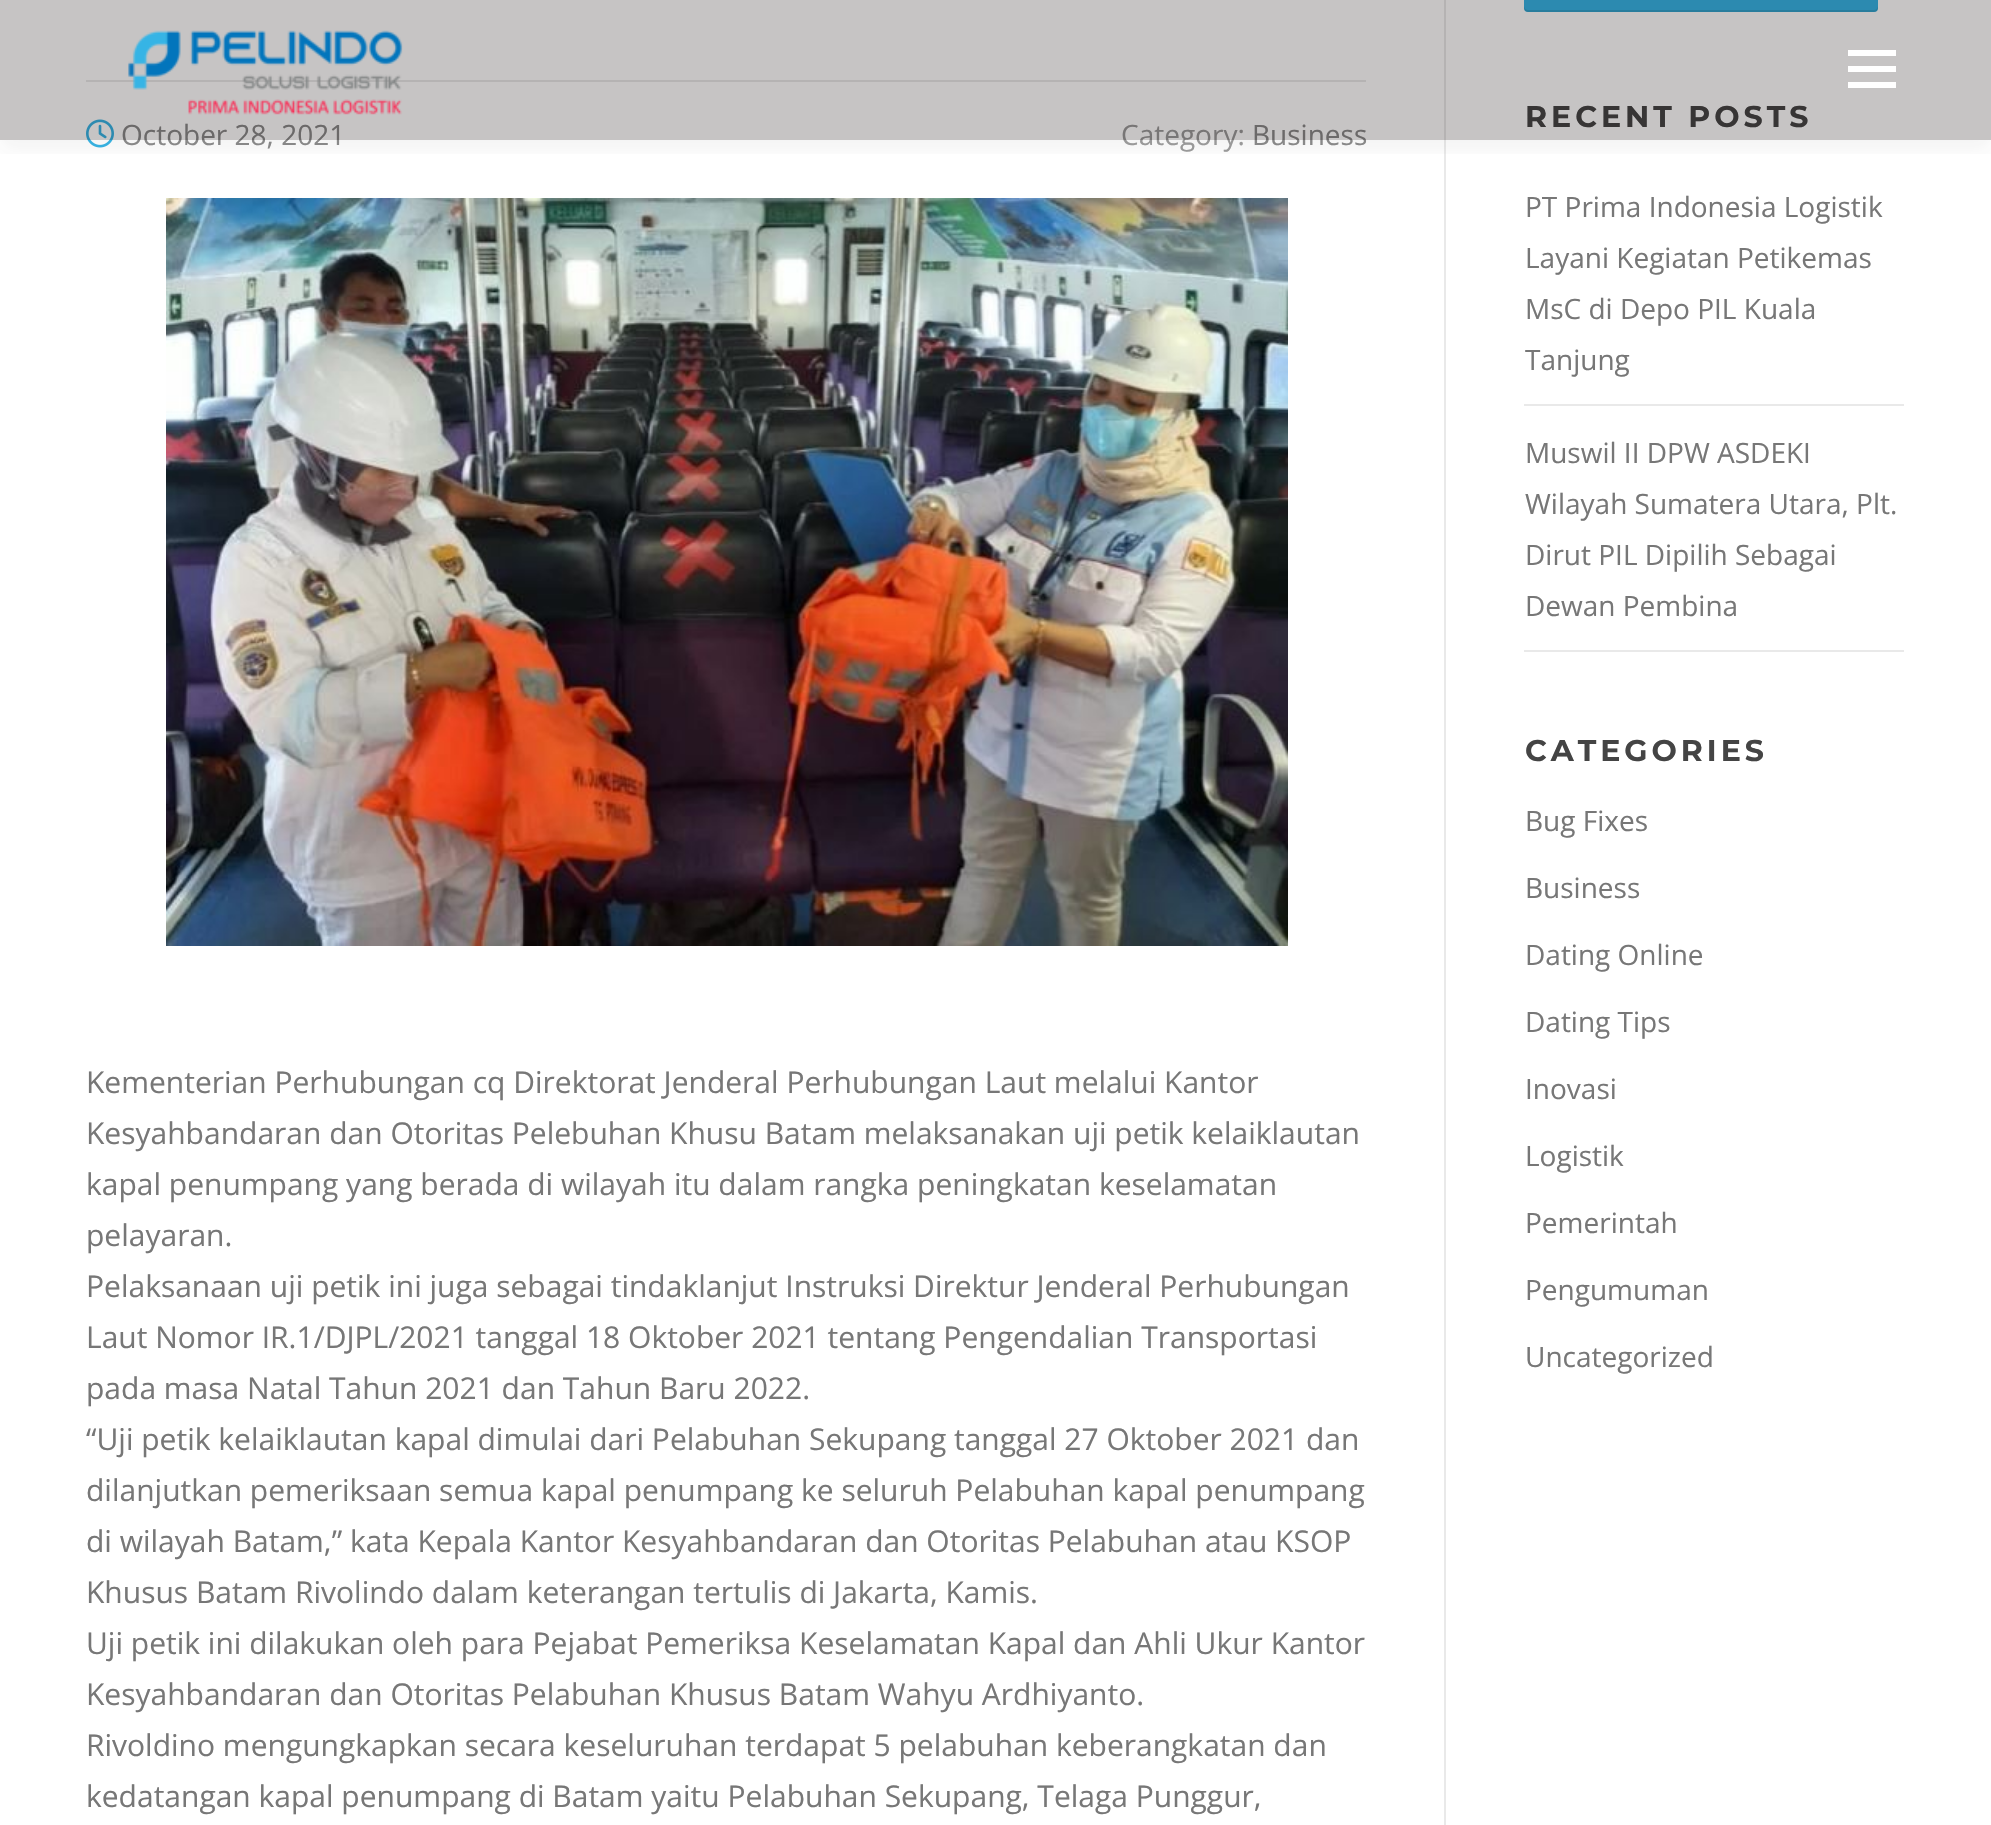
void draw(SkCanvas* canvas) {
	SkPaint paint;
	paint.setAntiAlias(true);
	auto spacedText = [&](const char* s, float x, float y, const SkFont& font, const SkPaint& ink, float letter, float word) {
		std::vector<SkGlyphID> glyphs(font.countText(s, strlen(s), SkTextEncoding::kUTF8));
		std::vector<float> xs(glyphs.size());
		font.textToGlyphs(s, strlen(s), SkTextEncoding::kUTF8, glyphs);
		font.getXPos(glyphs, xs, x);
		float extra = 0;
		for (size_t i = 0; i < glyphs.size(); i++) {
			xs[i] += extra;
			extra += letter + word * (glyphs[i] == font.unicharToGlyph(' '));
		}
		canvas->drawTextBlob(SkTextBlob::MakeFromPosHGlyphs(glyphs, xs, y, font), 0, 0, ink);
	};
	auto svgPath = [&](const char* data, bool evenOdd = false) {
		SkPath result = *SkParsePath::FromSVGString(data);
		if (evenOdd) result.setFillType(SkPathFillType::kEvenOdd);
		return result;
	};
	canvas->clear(0xffffffff);
	paint.setColor(0xffe9e9e9);
	canvas->drawRect(SkRect::MakeXYWH(1444, 0, 2, 1825), paint);
	canvas->drawRect(SkRect::MakeXYWH(86, 80, 1280, 2), paint);
	canvas->drawImageRect(SkImages::DeferredFromEncodedData(SkData::MakeFromFileName("img2.png")), SkRect::MakeXYWH(86, 119, 28, 29), SkSamplingOptions());
	paint.setColor(0xff36b4e5);
	canvas->drawRoundRect(SkRect::MakeXYWH(1524, -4, 354, 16), 4, 4, paint);
	paint.setColor(0x1a000000);
	canvas->drawPath(svgPath("M1524 6V8C1524 10 1526 12 1528 12H1874C1876 12 1878 10 1878 8V6C1878 8 1876 10 1874 10H1528C1526 10 1524 8 1524 6Z"), paint);
	canvas->save();
	canvas->clipRect(SkRect::MakeXYWH(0, 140, 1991, 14));
	paint.setColor(0x0f323232);
	paint.setMaskFilter(SkMaskFilter::MakeBlur(kNormal_SkBlurStyle, 10));
	canvas->drawRect(SkRect::MakeXYWH(0, 10, 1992, 140), paint);
	paint.setMaskFilter(nullptr);
	canvas->restore();
	SkFont f1(fontMgr->matchFamilyStyle("Open Sans", SkFontStyle::Normal()), 28);
	f1.setSubpixel(true);
	paint.setColor(0xff888888);
	canvas->drawString("October 28, 2021", 121, 145, f1, paint);
	paint.setColor(0xff999999);
	canvas->drawString("Category:", 1121, 145, f1, paint);
	paint.setColor(0xff888888);
	canvas->drawString("Business", 1252, 145, f1, paint);
	SkFont f2(fontMgr->matchFamilyStyle("Montserrat", SkFontStyle::Bold()), 30);
	f2.setSubpixel(true);
	paint.setColor(0xff444444);
	spacedText("RECENT POSTS", 1525, 127, f2, paint, 4, 0);
	paint.setColor(0x3b0a0000);
	canvas->drawRect(SkRect::MakeXYWH(0, 0, 1991, 140), paint);
	canvas->drawImageRect(SkImages::DeferredFromEncodedData(SkData::MakeFromFileName("img1.png")), SkRect::MakeXYWH(128, 30, 275, 85), SkSamplingOptions());
	paint.setColor(0xffffffff);
	canvas->drawRect(SkRect::MakeXYWH(1848, 66, 48, 6), paint);
	canvas->drawRect(SkRect::MakeXYWH(1848, 50, 48, 6), paint);
	canvas->drawRect(SkRect::MakeXYWH(1848, 82, 48, 6), paint);
	canvas->drawImageRect(SkImages::DeferredFromEncodedData(SkData::MakeFromFileName("img3.png")), SkRect::MakeXYWH(166, 198, 1122, 748), SkSamplingOptions());
	SkFont f3(fontMgr->matchFamilyStyle("Open Sans", SkFontStyle::Normal()), 30);
	f3.setSubpixel(true);
	paint.setColor(0xff777777);
	canvas->drawString("Kementerian Perhubungan cq Direktorat Jenderal Perhubungan Laut melalui Kantor", 86, 1093, f3, paint);
	canvas->drawString("Kesyahbandaran dan Otoritas Pelebuhan Khusu Batam melaksanakan uji petik kelaiklautan", 86, 1144, f3, paint);
	canvas->drawString("kapal penumpang yang berada di wilayah itu dalam rangka peningkatan keselamatan", 86, 1195, f3, paint);
	canvas->drawString("pelayaran.", 86, 1246, f3, paint);
	canvas->drawString("Pelaksanaan uji petik ini juga sebagai tindaklanjut Instruksi Direktur Jenderal Perhubungan", 86, 1297, f3, paint);
	canvas->drawString("Laut Nomor IR.1/DJPL/2021 tanggal 18 Oktober 2021 tentang Pengendalian Transportasi", 86, 1348, f3, paint);
	canvas->drawString("pada masa Natal Tahun 2021 dan Tahun Baru 2022.", 86, 1399, f3, paint);
	canvas->drawString("“Uji petik kelaiklautan kapal dimulai dari Pelabuhan Sekupang tanggal 27 Oktober 2021 dan", 86, 1450, f3, paint);
	canvas->drawString("dilanjutkan pemeriksaan semua kapal penumpang ke seluruh Pelabuhan kapal penumpang", 86, 1501, f3, paint);
	canvas->drawString("di wilayah Batam,” kata Kepala Kantor Kesyahbandaran dan Otoritas Pelabuhan atau KSOP", 86, 1552, f3, paint);
	canvas->drawString("Khusus Batam Rivolindo dalam keterangan tertulis di Jakarta, Kamis.", 86, 1603, f3, paint);
	canvas->drawString("Uji petik ini dilakukan oleh para Pejabat Pemeriksa Keselamatan Kapal dan Ahli Ukur Kantor", 86, 1654, f3, paint);
	canvas->drawString("Kesyahbandaran dan Otoritas Pelabuhan Khusus Batam Wahyu Ardhiyanto.", 86, 1705, f3, paint);
	canvas->drawString("Rivoldino mengungkapkan secara keseluruhan terdapat 5 pelabuhan keberangkatan dan", 86, 1756, f3, paint);
	canvas->drawString("kedatangan kapal penumpang di Batam yaitu Pelabuhan Sekupang, Telaga Punggur,", 86, 1807, f3, paint);
	paint.setColor(0xffe9e9e9);
	canvas->drawRect(SkRect::MakeXYWH(1524, 404, 380, 2), paint);
	paint.setColor(0xff777777);
	canvas->drawString("PT Prima Indonesia Logistik", 1525, 217, f1, paint);
	canvas->drawString("Layani Kegiatan Petikemas", 1525, 268, f1, paint);
	canvas->drawString("MsC di Depo PIL Kuala", 1525, 319, f1, paint);
	canvas->drawString("Tanjung", 1525, 370, f1, paint);
	paint.setColor(0xffe9e9e9);
	canvas->drawRect(SkRect::MakeXYWH(1524, 650, 380, 2), paint);
	paint.setColor(0xff777777);
	canvas->drawString("Muswil II DPW ASDEKI", 1525, 463, f1, paint);
	canvas->drawString("Wilayah Sumatera Utara, Plt.", 1525, 514, f1, paint);
	canvas->drawString("Dirut PIL Dipilih Sebagai", 1525, 565, f1, paint);
	canvas->drawString("Dewan Pembina", 1525, 616, f1, paint);
	paint.setColor(0xff444444);
	spacedText("CATEGORIES", 1525, 761, f2, paint, 4, 0);
	paint.setColor(0xff777777);
	canvas->drawString("Bug Fixes", 1525, 831, f1, paint);
	canvas->drawString("Business", 1525, 898, f1, paint);
	canvas->drawString("Dating Online", 1525, 965, f1, paint);
	canvas->drawString("Dating Tips", 1525, 1032, f1, paint);
	canvas->drawString("Inovasi", 1525, 1099, f1, paint);
	canvas->drawString("Logistik", 1525, 1166, f1, paint);
	canvas->drawString("Pemerintah", 1525, 1233, f1, paint);
	canvas->drawString("Pengumuman", 1525, 1300, f1, paint);
	canvas->drawString("Uncategorized", 1525, 1367, f1, paint);
}
